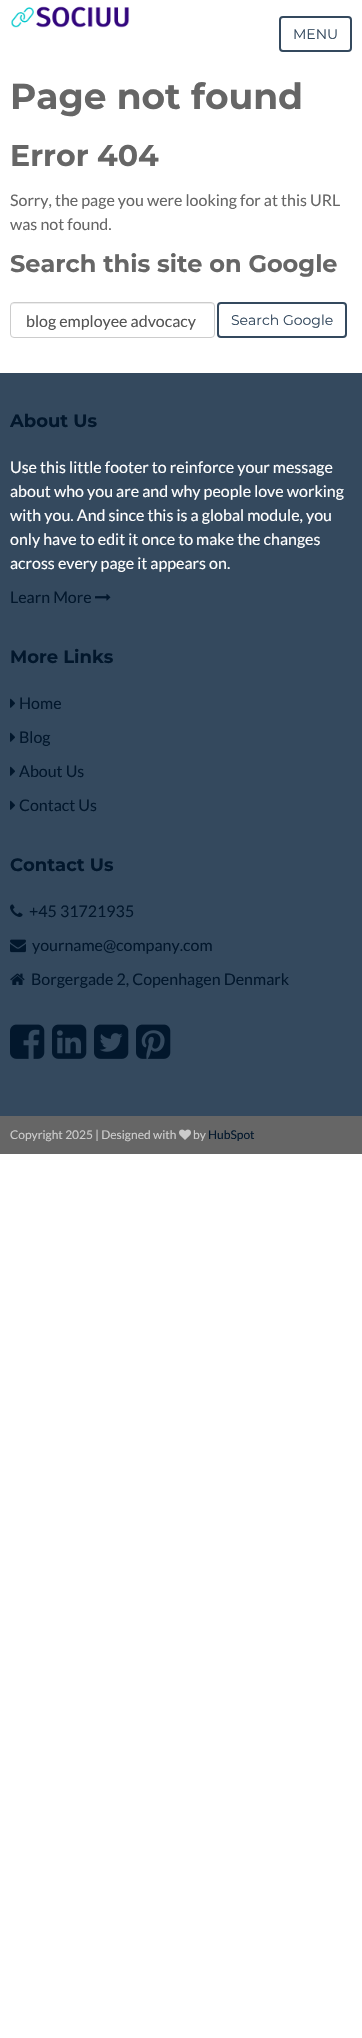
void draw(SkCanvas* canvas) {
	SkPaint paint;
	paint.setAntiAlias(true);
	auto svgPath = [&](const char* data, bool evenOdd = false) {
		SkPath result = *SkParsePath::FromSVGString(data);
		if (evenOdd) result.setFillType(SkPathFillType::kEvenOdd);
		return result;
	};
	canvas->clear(0xffffffff);
	canvas->drawImageRect(SkImages::DeferredFromEncodedData(SkData::MakeFromFileName("img1.png")), SkRect::MakeXYWH(11, 6, 119, 22), SkSamplingOptions());
	paint.setStroke(true);
	paint.setStrokeWidth(2);
	paint.setColor(0xff34495e);
	canvas->drawRoundRect(SkRect::MakeXYWH(280, 17, 71, 34), 3, 3, paint);
	SkFont f1(fontMgr->matchFamilyStyle("Montserrat", SkFontStyle::Normal()), 14);
	f1.setSubpixel(true);
	paint.setStroke(false);
	canvas->drawString("MENU", 293, 39, f1, paint);
	SkFont f2(fontMgr->matchFamilyStyle("Montserrat", SkFontStyle::Bold()), 36);
	f2.setSubpixel(true);
	paint.setColor(0xff666666);
	canvas->drawString("Page not found", 10, 109, f2, paint);
	SkFont f3(fontMgr->matchFamilyStyle("Montserrat", SkFontStyle::Bold()), 30);
	f3.setSubpixel(true);
	canvas->drawString("Error 404", 10, 166, f3, paint);
	SkFont f4(fontMgr->matchFamilyStyle("Lato", SkFontStyle::Normal()), 16);
	f4.setSubpixel(true);
	canvas->drawString("Sorry, the page you were looking for at this URL", 10, 206, f4, paint);
	canvas->drawString("was not found.", 10, 230, f4, paint);
	SkFont f5(fontMgr->matchFamilyStyle("Montserrat", SkFontStyle::Bold()), 24);
	f5.setSubpixel(true);
	canvas->drawString("Search this site on Google", 10, 272, f5, paint);
	paint.setColor(0xffececec);
	canvas->drawPath(svgPath("M14 304H211C213 304 214 305 214 307C214 305 213 303 211 303H14C12 303 11 305 11 307C11 305 12 304 14 304Z"), paint);
	paint.setStroke(true);
	paint.setStrokeWidth(1);
	paint.setColor(0xffcccccc);
	canvas->drawRoundRect(SkRect::MakeXYWH(10.5, 302.5, 204, 35), 3.5, 3.5, paint);
	paint.setStroke(false);
	paint.setColor(0xff555555);
	canvas->drawString("blog employee advocacy", 26, 327, f4, paint);
	paint.setStroke(true);
	paint.setStrokeWidth(2);
	paint.setColor(0xff34495e);
	canvas->drawRoundRect(SkRect::MakeXYWH(218, 303, 128, 34), 3, 3, paint);
	paint.setStroke(false);
	canvas->drawString("Search Google", 231, 325, f1, paint);
	canvas->drawRect(SkRect::MakeXYWH(0, 373, 362, 743), paint);
	SkFont f6(fontMgr->matchFamilyStyle("Montserrat", SkFontStyle::Bold()), 18);
	f6.setSubpixel(true);
	paint.setColor(0xff02172c);
	canvas->drawString("About Us", 10, 427, f6, paint);
	paint.setColor(0xffffffff);
	canvas->drawString("Use this little footer to reinforce your message", 10, 473, f4, paint);
	canvas->drawString("about who you are and why people love working", 10, 497, f4, paint);
	canvas->drawString("with you. And since this is a global module, you", 10, 521, f4, paint);
	canvas->drawString("only have to edit it once to make the changes", 10, 545, f4, paint);
	canvas->drawString("across every page it appears on.", 10, 569, f4, paint);
	paint.setColor(0xff02172c);
	canvas->drawString("Learn More", 10, 603, f4, paint);
	canvas->drawImageRect(SkImages::DeferredFromEncodedData(SkData::MakeFromFileName("img2.png")), SkRect::MakeXYWH(95, 594, 16, 7), SkSamplingOptions());
	canvas->drawString("More Links", 10, 663, f6, paint);
	canvas->drawImageRect(SkImages::DeferredFromEncodedData(SkData::MakeFromFileName("img3.png")), SkRect::MakeXYWH(10, 698, 5, 10), SkSamplingOptions());
	canvas->drawString("Home", 19, 709, f4, paint);
	canvas->drawImageRect(SkImages::DeferredFromEncodedData(SkData::MakeFromFileName("img3.png")), SkRect::MakeXYWH(10, 732, 5, 10), SkSamplingOptions());
	canvas->drawString("Blog", 19, 743, f4, paint);
	canvas->drawImageRect(SkImages::DeferredFromEncodedData(SkData::MakeFromFileName("img3.png")), SkRect::MakeXYWH(10, 766, 5, 10), SkSamplingOptions());
	canvas->drawString("About Us", 19, 777, f4, paint);
	canvas->drawImageRect(SkImages::DeferredFromEncodedData(SkData::MakeFromFileName("img3.png")), SkRect::MakeXYWH(10, 800, 5, 10), SkSamplingOptions());
	canvas->drawString("Contact Us", 19, 811, f4, paint);
	canvas->drawString("Contact Us", 10, 871, f6, paint);
	canvas->drawImageRect(SkImages::DeferredFromEncodedData(SkData::MakeFromFileName("img4.png")), SkRect::MakeXYWH(10, 904, 13, 13), SkSamplingOptions());
	canvas->drawString("+45 31721935", 29, 917, f4, paint);
	canvas->drawImageRect(SkImages::DeferredFromEncodedData(SkData::MakeFromFileName("img5.png")), SkRect::MakeXYWH(10, 939, 16, 14), SkSamplingOptions());
	canvas->drawString("yourname@company.com", 32, 951, f4, paint);
	canvas->drawImageRect(SkImages::DeferredFromEncodedData(SkData::MakeFromFileName("img6.png")), SkRect::MakeXYWH(10, 973, 15, 12), SkSamplingOptions());
	canvas->drawString("Borgergade 2, Copenhagen Denmark", 31, 985, f4, paint);
	canvas->drawImageRect(SkImages::DeferredFromEncodedData(SkData::MakeFromFileName("img7.png")), SkRect::MakeXYWH(10, 1024, 35, 35), SkSamplingOptions());
	canvas->drawImageRect(SkImages::DeferredFromEncodedData(SkData::MakeFromFileName("img8.png")), SkRect::MakeXYWH(52, 1024, 35, 35), SkSamplingOptions());
	canvas->drawImageRect(SkImages::DeferredFromEncodedData(SkData::MakeFromFileName("img9.png")), SkRect::MakeXYWH(94, 1024, 35, 35), SkSamplingOptions());
	canvas->drawImageRect(SkImages::DeferredFromEncodedData(SkData::MakeFromFileName("img10.png")), SkRect::MakeXYWH(136, 1024, 35, 35), SkSamplingOptions());
	paint.setColor(0xff666666);
	canvas->drawRect(SkRect::MakeXYWH(0, 1116, 362, 38), paint);
	SkFont f7(fontMgr->matchFamilyStyle("Lato", SkFontStyle::Normal()), 12);
	f7.setSubpixel(true);
	paint.setColor(0xffcccccc);
	canvas->drawString("Copyright 2025 | Designed with", 10, 1139, f7, paint);
	canvas->drawImageRect(SkImages::DeferredFromEncodedData(SkData::MakeFromFileName("img11.png")), SkRect::MakeXYWH(179, 1129, 12, 11), SkSamplingOptions());
	canvas->drawString("by", 193, 1139, f7, paint);
	paint.setColor(0xff02172c);
	canvas->drawString("HubSpot", 208, 1139, f7, paint);
}
